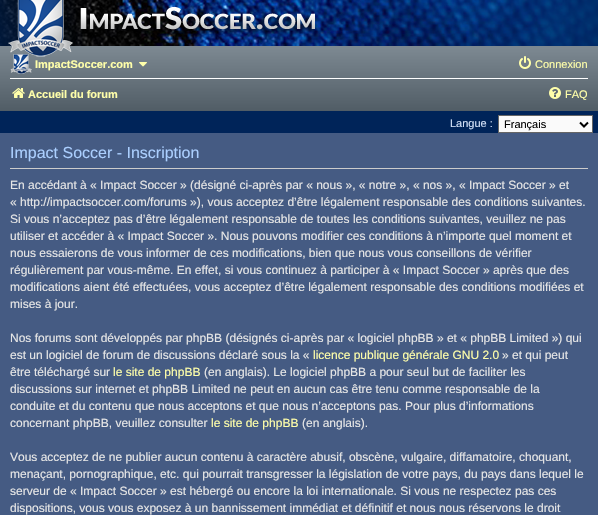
void draw(SkCanvas* canvas) {
	SkPaint paint;
	paint.setAntiAlias(true);
	auto svgPath = [&](const char* data, bool evenOdd = false) {
		SkPath result = *SkParsePath::FromSVGString(data);
		if (evenOdd) result.setFillType(SkPathFillType::kEvenOdd);
		return result;
	};
	canvas->clear(0xff002459);
	canvas->drawImageRect(SkImages::DeferredFromEncodedData(SkData::MakeFromFileName("img1.png")), SkRect::MakeXYWH(0, 0, 598, 46), SkSamplingOptions());
	{
		const SkColor colors[] = {0xff7c8891, 0xff7c8891, 0xff505c65};
		const float stops[] = {0, 0.03, 1};
		const SkPoint ends[] = {{299, 46}, {299, 112}};
		paint.setShader(SkGradientShader::MakeLinear(ends, colors, stops, 3, SkTileMode::kClamp));
		paint.setAlpha(255);
	}
	canvas->drawRect(SkRect::MakeXYWH(0, 46, 598, 65), paint);
	canvas->drawImageRect(SkImages::DeferredFromEncodedData(SkData::MakeFromFileName("img3.png")), SkRect::MakeXYWH(10, 54, 22, 20), SkSamplingOptions());
	canvas->drawImageRect(SkImages::DeferredFromEncodedData(SkData::MakeFromFileName("img2.png")), SkRect::MakeXYWH(8, 0, 65, 57), SkSamplingOptions());
	SkFont f1(fontMgr->matchFamilyStyle("Liberation Sans", SkFontStyle::Bold()), 11);
	f1.setSubpixel(true);
	paint.setShader(nullptr);
	paint.setColor(0xffffffaa);
	canvas->drawString("ImpactSoccer.com", 35, 68, f1, paint);
	canvas->drawImageRect(SkImages::DeferredFromEncodedData(SkData::MakeFromFileName("img4.png")), SkRect::MakeXYWH(139, 62, 8, 5), SkSamplingOptions());
	canvas->drawImageRect(SkImages::DeferredFromEncodedData(SkData::MakeFromFileName("img5.png")), SkRect::MakeXYWH(519, 56, 12, 13), SkSamplingOptions());
	SkFont f2(fontMgr->matchFamilyStyle("Liberation Sans", SkFontStyle::Normal()), 11);
	f2.setSubpixel(true);
	canvas->drawString("Connexion", 535, 68, f2, paint);
	paint.setColor(0xffffffff);
	canvas->drawRect(SkRect::MakeXYWH(10, 78, 578, 1), paint);
	canvas->drawImageRect(SkImages::DeferredFromEncodedData(SkData::MakeFromFileName("img6.png")), SkRect::MakeXYWH(12, 88, 13, 10), SkSamplingOptions());
	paint.setColor(0xffffffaa);
	canvas->drawString("Accueil du forum", 28, 98, f1, paint);
	canvas->drawImageRect(SkImages::DeferredFromEncodedData(SkData::MakeFromFileName("img7.png")), SkRect::MakeXYWH(549, 87, 12, 12), SkSamplingOptions());
	canvas->drawString("FAQ", 565, 98, f2, paint);
	paint.setColor(0xffd2e0f7);
	canvas->drawString("Langue :", 450, 127, f2, paint);
	paint.setColor(0xfffafafa);
	canvas->drawRect(SkRect::MakeXYWH(498.5, 115.5, 94, 17), paint);
	paint.setStroke(true);
	paint.setStrokeWidth(1);
	paint.setColor(0xff666666);
	canvas->drawRect(SkRect::MakeXYWH(498.5, 115.5, 94, 17), paint);
	paint.setStrokeWidth(2);
	paint.setColor(0xff000000);
	canvas->drawPath(svgPath("M580 122.5L584 126.5L588 122.5"), paint);
	paint.setStroke(false);
	canvas->drawString("Français", 504, 128, f2, paint);
	paint.setColor(0xff455b83);
	canvas->drawRect(SkRect::MakeXYWH(0, 133, 598, 382), paint);
	paint.setColor(0xffcccccc);
	canvas->drawRect(SkRect::MakeXYWH(10, 168, 578, 1), paint);
	SkFont f3(fontMgr->matchFamilyStyle("Liberation Sans", SkFontStyle::Normal()), 16);
	f3.setSubpixel(true);
	paint.setColor(0xffabcfff);
	canvas->drawString("Impact Soccer - Inscription", 10, 158, f3, paint);
	SkFont f4(fontMgr->matchFamilyStyle("Liberation Sans", SkFontStyle::Normal()), 12);
	f4.setSubpixel(true);
	paint.setColor(0xffe6e6e6);
	canvas->drawString("En accédant à « Impact Soccer » (désigné ci-après par « nous », « notre », « nos », « Impact Soccer » et", 10, 189, f4, paint);
	canvas->drawString("« http://impactsoccer.com/forums »), vous acceptez d’être légalement responsable des conditions suivantes.", 10, 206, f4, paint);
	canvas->drawString("Si vous n’acceptez pas d’être légalement responsable de toutes les conditions suivantes, veuillez ne pas", 10, 223, f4, paint);
	canvas->drawString("utiliser et accéder à « Impact Soccer ». Nous pouvons modifier ces conditions à n’importe quel moment et", 10, 240, f4, paint);
	canvas->drawString("nous essaierons de vous informer de ces modifications, bien que nous vous conseillons de vérifier", 10, 257, f4, paint);
	canvas->drawString("régulièrement par vous-même. En effet, si vous continuez à participer à « Impact Soccer » après que des", 10, 274, f4, paint);
	canvas->drawString("modifications aient été effectuées, vous acceptez d’être légalement responsable des conditions modifiées et", 10, 291, f4, paint);
	canvas->drawString("mises à jour.", 10, 308, f4, paint);
	canvas->drawString("Nos forums sont développés par phpBB (désignés ci-après par « logiciel phpBB » et « phpBB Limited ») qui", 10, 342, f4, paint);
	canvas->drawString("est un logiciel de forum de discussions déclaré sous la «", 10, 359, f4, paint);
	paint.setColor(0xffffffaa);
	canvas->drawString("licence publique générale GNU 2.0", 313, 359, f4, paint);
	paint.setColor(0xffe6e6e6);
	canvas->drawString("» et qui peut", 502, 359, f4, paint);
	canvas->drawString("être téléchargé sur", 10, 376, f4, paint);
	paint.setColor(0xffffffaa);
	canvas->drawString("le site de phpBB", 113, 376, f4, paint);
	paint.setColor(0xffe6e6e6);
	canvas->drawString("(en anglais). Le logiciel phpBB a pour seul but de faciliter les", 204, 376, f4, paint);
	canvas->drawString("discussions sur internet et phpBB Limited ne peut en aucun cas être tenu comme responsable de la", 10, 393, f4, paint);
	canvas->drawString("conduite et du contenu que nous acceptons et que nous n’acceptons pas. Pour plus d’informations", 10, 410, f4, paint);
	canvas->drawString("concernant phpBB, veuillez consulter", 10, 427, f4, paint);
	paint.setColor(0xffffffaa);
	canvas->drawString("le site de phpBB", 211, 427, f4, paint);
	paint.setColor(0xffe6e6e6);
	canvas->drawString("(en anglais).", 302, 427, f4, paint);
	canvas->drawString("Vous acceptez de ne publier aucun contenu à caractère abusif, obscène, vulgaire, diffamatoire, choquant,", 10, 461, f4, paint);
	canvas->drawString("menaçant, pornographique, etc. qui pourrait transgresser la législation de votre pays, du pays dans lequel le", 10, 478, f4, paint);
	canvas->drawString("serveur de « Impact Soccer » est hébergé ou encore la loi internationale. Si vous ne respectez pas ces", 10, 495, f4, paint);
	canvas->drawString("dispositions, vous vous exposez à un bannissement immédiat et définitif et nous nous réservons le droit", 10, 512, f4, paint);
}
